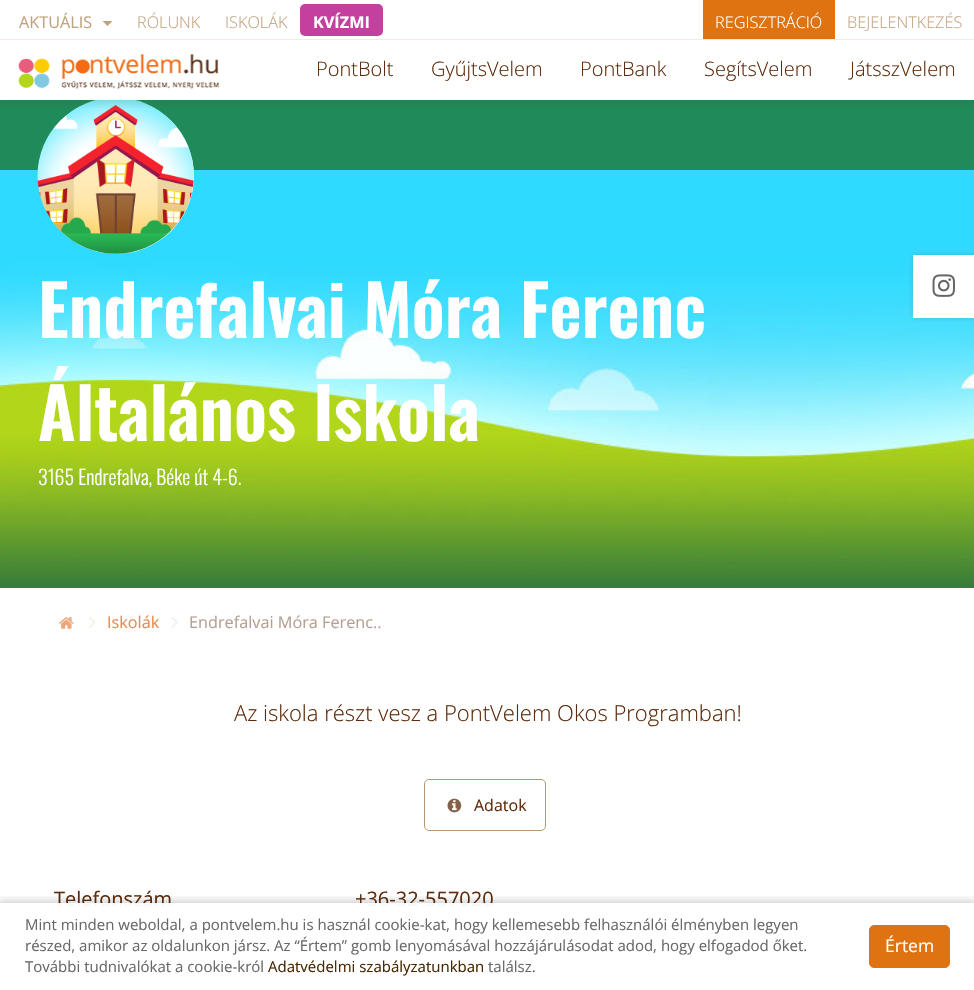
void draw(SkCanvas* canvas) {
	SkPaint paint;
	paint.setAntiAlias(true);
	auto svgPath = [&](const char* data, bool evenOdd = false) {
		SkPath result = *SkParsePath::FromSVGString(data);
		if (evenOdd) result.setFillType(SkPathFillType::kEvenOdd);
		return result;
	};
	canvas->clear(0xffffffff);
	paint.setColor(0xff1f8a5a);
	canvas->drawRect(SkRect::MakeXYWH(0, 100, 974, 488), paint);
	canvas->drawImageRect(SkImages::DeferredFromEncodedData(SkData::MakeFromFileName("img2.png")), SkRect::MakeXYWH(0, 170, 974, 418), SkSamplingOptions());
	paint.setColor(0xffffffff);
	canvas->drawCircle(116, 176, 78, paint);
	canvas->drawImageRect(SkImages::DeferredFromEncodedData(SkData::MakeFromFileName("img3.png")), SkRect::MakeXYWH(37, 100, 157, 154), SkSamplingOptions());
	canvas->save();
	canvas->clipRect(SkRect::MakeXYWH(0, 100, 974, 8));
	paint.setColor(0x405e2c0c);
	paint.setMaskFilter(SkMaskFilter::MakeBlur(kNormal_SkBlurStyle, 6));
	canvas->drawRect(SkRect::MakeXYWH(0, 0, 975, 100), paint);
	paint.setMaskFilter(nullptr);
	canvas->restore();
	paint.setColor(0xfff2ebe5);
	canvas->drawRect(SkRect::MakeXYWH(0, 39, 974, 1), paint);
	SkFont f1(fontMgr->matchFamilyStyle("Open Sans", SkFontStyle::Normal()), 16.25);
	f1.setSubpixel(true);
	paint.setColor(0xffc2a27e);
	canvas->drawString("AKTUÁLIS", 19, 28, f1, paint);
	canvas->drawPath(svgPath("M102.5 21H112.5L107.5 26Z"), paint);
	SkFont f2(fontMgr->matchFamilyStyle("Open Sans", SkFontStyle(300, SkFontStyle::kNormal_Width, SkFontStyle::kUpright_Slant)), 16.25);
	f2.setSubpixel(true);
	canvas->drawString("RÓLUNK", 137, 28, f2, paint);
	canvas->drawString("ISKOLÁK", 225, 28, f2, paint);
	paint.setColor(0xffc4409e);
	canvas->drawRoundRect(SkRect::MakeXYWH(300, 4, 83, 32), 5, 5, paint);
	SkFont f3(fontMgr->matchFamilyStyle("Open Sans", SkFontStyle::Bold()), 16.25);
	f3.setSubpixel(true);
	paint.setColor(0xffffffff);
	canvas->drawString("KVÍZMI", 313, 28, f3, paint);
	paint.setColor(0xffdf7211);
	canvas->drawRect(SkRect::MakeXYWH(703, 0, 132, 39), paint);
	paint.setColor(0xffffffff);
	canvas->drawString("REGISZTRÁCIÓ", 715, 28, f2, paint);
	paint.setColor(0xffc2a27e);
	canvas->drawString("BEJELENTKEZÉS", 847, 28, f2, paint);
	canvas->drawImageRect(SkImages::DeferredFromEncodedData(SkData::MakeFromFileName("img1.png")), SkRect::MakeXYWH(18, 54, 201, 35), SkSamplingOptions());
	SkFont f4(fontMgr->matchFamilyStyle("Open Sans", SkFontStyle(300, SkFontStyle::kNormal_Width, SkFontStyle::kUpright_Slant)), 20);
	f4.setSubpixel(true);
	paint.setColor(0xff5e2c0c);
	canvas->drawString("PontBolt", 316, 76, f4, paint);
	canvas->drawString("GyűjtsVelem", 431, 76, f4, paint);
	canvas->drawString("PontBank", 580, 76, f4, paint);
	canvas->drawString("SegítsVelem", 704, 76, f4, paint);
	canvas->drawString("JátsszVelem", 850, 76, f4, paint);
	SkFont f5(fontMgr->matchFamilyStyle("Oswald", SkFontStyle(600, SkFontStyle::kNormal_Width, SkFontStyle::kUpright_Slant)), 70);
	f5.setSubpixel(true);
	paint.setColor(0xffffffff);
	canvas->drawString("Endrefalvai Móra Ferenc", 38, 338, f5, paint);
	canvas->drawString("Általános Iskola", 38, 441, f5, paint);
	SkFont f6(fontMgr->matchFamilyStyle("Oswald", SkFontStyle(300, SkFontStyle::kNormal_Width, SkFontStyle::kUpright_Slant)), 20);
	f6.setSubpixel(true);
	canvas->drawString("3165 Endrefalva, Béke út 4-6.", 38, 485, f6, paint);
	canvas->drawImageRect(SkImages::DeferredFromEncodedData(SkData::MakeFromFileName("img4.png")), SkRect::MakeXYWH(59, 617, 15, 12), SkSamplingOptions());
	canvas->drawImageRect(SkImages::DeferredFromEncodedData(SkData::MakeFromFileName("img5.png")), SkRect::MakeXYWH(89, 617, 7, 11), SkSamplingOptions());
	paint.setColor(0xffe88a4e);
	canvas->drawString("Iskolák", 107, 628, f1, paint);
	canvas->drawImageRect(SkImages::DeferredFromEncodedData(SkData::MakeFromFileName("img6.png")), SkRect::MakeXYWH(171, 617, 7, 11), SkSamplingOptions());
	paint.setColor(0xffb49f92);
	canvas->drawString("Endrefalvai Móra Ferenc..", 189, 628, f1, paint);
	SkFont f7(fontMgr->matchFamilyStyle("Open Sans", SkFontStyle(300, SkFontStyle::kNormal_Width, SkFontStyle::kUpright_Slant)), 22);
	f7.setSubpixel(true);
	paint.setColor(0xff5e2c0c);
	canvas->drawString("Az iskola részt vesz a PontVelem Okos Programban!", 234, 721, f7, paint);
	paint.setStroke(true);
	paint.setStrokeWidth(1);
	paint.setColor(0xffb89671);
	canvas->drawRoundRect(SkRect::MakeXYWH(424.5, 779.5, 121, 51), 4.5, 4.5, paint);
	canvas->drawImageRect(SkImages::DeferredFromEncodedData(SkData::MakeFromFileName("img7.png")), SkRect::MakeXYWH(447, 798, 15, 15), SkSamplingOptions());
	SkFont f8(fontMgr->matchFamilyStyle("Open Sans", SkFontStyle::Normal()), 16);
	f8.setSubpixel(true);
	paint.setStroke(false);
	paint.setColor(0xff5e2c0c);
	canvas->drawString("Adatok", 474, 811, f8, paint);
	SkFont f9(fontMgr->matchFamilyStyle("Open Sans", SkFontStyle::Normal()), 20);
	f9.setSubpixel(true);
	canvas->drawString("Telefonszám", 54, 906, f9, paint);
	canvas->drawString("+36-32-557020", 355, 906, f9, paint);
	paint.setColor(0x335e2c0c);
	paint.setMaskFilter(SkMaskFilter::MakeBlur(kNormal_SkBlurStyle, 2.5));
	canvas->drawRect(SkRect::MakeXYWH(913, 255, 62, 63), paint);
	paint.setMaskFilter(nullptr);
	paint.setColor(0xffffffff);
	canvas->drawRect(SkRect::MakeXYWH(913, 255, 61, 63), paint);
	canvas->drawImageRect(SkImages::DeferredFromEncodedData(SkData::MakeFromFileName("img8.png")), SkRect::MakeXYWH(932, 274, 23, 23), SkSamplingOptions());
	canvas->save();
	canvas->clipRect(SkRect::MakeXYWH(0, 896, 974, 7));
	paint.setColor(0x33000000);
	paint.setMaskFilter(SkMaskFilter::MakeBlur(kNormal_SkBlurStyle, 4));
	canvas->drawRect(SkRect::MakeXYWH(-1, 901, 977, 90), paint);
	paint.setMaskFilter(nullptr);
	canvas->restore();
	paint.setColor(0xf2ffffff);
	canvas->drawRect(SkRect::MakeXYWH(58, 903, 435, 4), paint);
	SkFont f10(fontMgr->matchFamilyStyle("Open Sans", SkFontStyle::Normal()), 15);
	f10.setSubpixel(true);
	paint.setColor(0xff686868);
	canvas->drawString("Mint minden weboldal, a pontvelem.hu is használ cookie-kat, hogy kellemesebb felhasználói élményben legyen", 25, 930, f10, paint);
	canvas->drawString("részed, amikor az oldalunkon jársz. Az “Értem” gomb lenyomásával hozzájárulásodat adod, hogy elfogadod őket.", 25, 951, f10, paint);
	canvas->drawString("További tudnivalókat a cookie-król", 25, 972, f10, paint);
	paint.setColor(0xff462700);
	canvas->drawString("Adatvédelmi szabályzatunkban", 268, 972, f10, paint);
	paint.setColor(0xff686868);
	canvas->drawString("találsz.", 488, 972, f10, paint);
	paint.setColor(0xffdf7211);
	canvas->drawRoundRect(SkRect::MakeXYWH(869.5, 925.5, 80, 42), 4.5, 4.5, paint);
	paint.setStroke(true);
	canvas->drawRoundRect(SkRect::MakeXYWH(869.5, 925.5, 80, 42), 4.5, 4.5, paint);
	SkFont f11(fontMgr->matchFamilyStyle("Open Sans", SkFontStyle::Normal()), 17.5);
	f11.setSubpixel(true);
	paint.setStroke(false);
	paint.setColor(0xffffffff);
	canvas->drawString("Értem", 885, 952, f11, paint);
}
